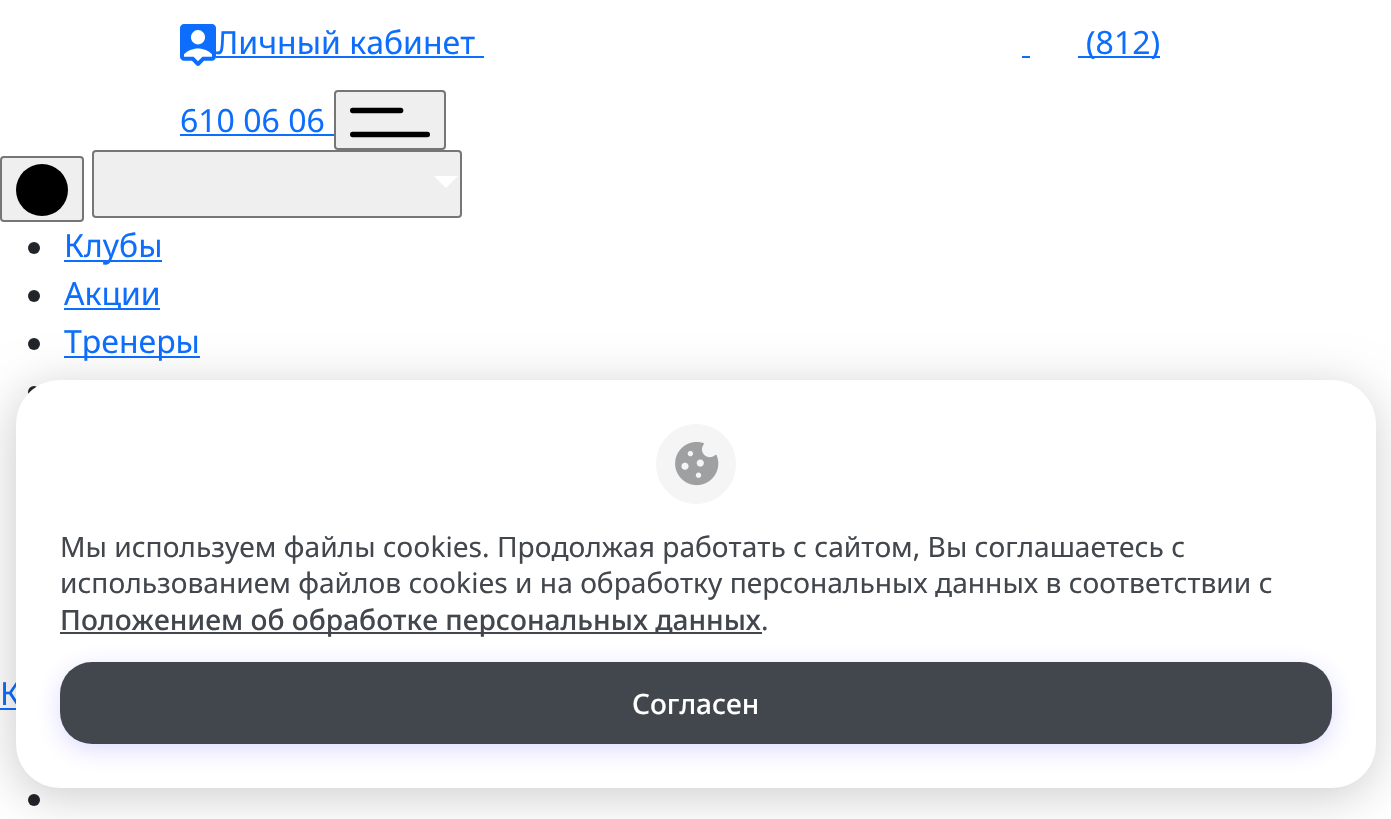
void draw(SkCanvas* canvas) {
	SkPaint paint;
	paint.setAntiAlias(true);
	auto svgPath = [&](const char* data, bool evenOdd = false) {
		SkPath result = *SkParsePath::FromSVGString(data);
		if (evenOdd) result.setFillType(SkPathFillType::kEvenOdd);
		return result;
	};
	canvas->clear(0xffffffff);
	canvas->drawImageRect(SkImages::DeferredFromEncodedData(SkData::MakeFromFileName("img1.png")), SkRect::MakeXYWH(180, 24, 36, 42), SkSamplingOptions());
	SkFont f1(fontMgr->matchFamilyStyle("Noto Sans", SkFontStyle::Normal()), 32);
	f1.setSubpixel(true);
	paint.setColor(0xff0d6efd);
	canvas->drawString("Личный кабинет", 216, 54, f1, paint);
	canvas->drawRect(SkRect::MakeXYWH(216, 56, 268, 2), paint);
	canvas->drawRect(SkRect::MakeXYWH(1022, 56, 8, 2), paint);
	canvas->drawRect(SkRect::MakeXYWH(1078, 56, 82, 2), paint);
	canvas->drawString("(812)", 1086, 54, f1, paint);
	canvas->drawString("610 06 06", 180, 132, f1, paint);
	canvas->drawRect(SkRect::MakeXYWH(180, 134, 154, 2), paint);
	paint.setColor(0xffefefef);
	canvas->drawRoundRect(SkRect::MakeXYWH(335, 91, 110, 58), 3, 3, paint);
	paint.setStroke(true);
	paint.setStrokeWidth(2);
	paint.setColor(0xff767676);
	canvas->drawRoundRect(SkRect::MakeXYWH(335, 91, 110, 58), 3, 3, paint);
	canvas->drawImageRect(SkImages::DeferredFromEncodedData(SkData::MakeFromFileName("img2.png")), SkRect::MakeXYWH(350, 107, 80, 31), SkSamplingOptions());
	paint.setStroke(false);
	paint.setColor(0xffefefef);
	canvas->drawRoundRect(SkRect::MakeXYWH(1, 157, 82, 64), 3, 3, paint);
	paint.setStroke(true);
	paint.setColor(0xff767676);
	canvas->drawRoundRect(SkRect::MakeXYWH(1, 157, 82, 64), 3, 3, paint);
	canvas->drawImageRect(SkImages::DeferredFromEncodedData(SkData::MakeFromFileName("img3.png")), SkRect::MakeXYWH(16, 164, 52, 52), SkSamplingOptions());
	paint.setStroke(false);
	paint.setColor(0xffefefef);
	canvas->drawRoundRect(SkRect::MakeXYWH(93, 151, 368, 66), 3, 3, paint);
	paint.setStroke(true);
	paint.setColor(0xff767676);
	canvas->drawRoundRect(SkRect::MakeXYWH(93, 151, 368, 66), 3, 3, paint);
	paint.setStroke(false);
	paint.setColor(0xffffffff);
	canvas->drawPath(svgPath("M434 176H458L446 188Z"), paint);
	paint.setColor(0xff212529);
	canvas->drawCircle(34, 248, 6, paint);
	paint.setColor(0xff0d6efd);
	canvas->drawRect(SkRect::MakeXYWH(64, 260, 98, 2), paint);
	canvas->drawString("Клубы", 64, 257, f1, paint);
	paint.setColor(0xff212529);
	canvas->drawCircle(34, 296, 6, paint);
	paint.setColor(0xff0d6efd);
	canvas->drawRect(SkRect::MakeXYWH(64, 308, 96, 2), paint);
	canvas->drawString("Акции", 64, 305, f1, paint);
	paint.setColor(0xff212529);
	canvas->drawCircle(34, 344, 6, paint);
	paint.setColor(0xff0d6efd);
	canvas->drawRect(SkRect::MakeXYWH(64, 356, 136, 2), paint);
	canvas->drawString("Тренеры", 64, 353, f1, paint);
	paint.setColor(0xff212529);
	canvas->drawCircle(34, 392, 6, paint);
	paint.setColor(0xff0d6efd);
	canvas->drawString("К", 0, 705, f1, paint);
	canvas->drawRect(SkRect::MakeXYWH(0, 708, 16, 2), paint);
	paint.setColor(0xff212529);
	canvas->drawCircle(34, 800, 6, paint);
	paint.setColor(0x33000000);
	paint.setMaskFilter(SkMaskFilter::MakeBlur(kNormal_SkBlurStyle, 24));
	canvas->drawRoundRect(SkRect::MakeXYWH(14, 388, 1360, 408), 44, 44, paint);
	paint.setMaskFilter(nullptr);
	paint.setColor(0xffffffff);
	canvas->drawRoundRect(SkRect::MakeXYWH(16, 380, 1360, 408), 44, 44, paint);
	canvas->drawImageRect(SkImages::DeferredFromEncodedData(SkData::MakeFromFileName("img4.png")), SkRect::MakeXYWH(656, 424, 80, 80), SkSamplingOptions());
	SkFont f2(fontMgr->matchFamilyStyle("Noto Sans", SkFontStyle::Normal()), 28.15);
	f2.setSubpixel(true);
	paint.setColor(0xff42474d);
	canvas->drawString("Мы используем файлы cookies. Продолжая работать с сайтом, Вы соглашаетесь с", 60, 557, f2, paint);
	canvas->drawString("использованием файлов cookies и на обработку персональных данных в соответствии с", 60, 593, f2, paint);
	canvas->drawRect(SkRect::MakeXYWH(60, 632, 702, 2), paint);
	SkFont f3(fontMgr->matchFamilyStyle("Noto Sans", SkFontStyle(500, SkFontStyle::kNormal_Width, SkFontStyle::kUpright_Slant)), 28.15);
	f3.setSubpixel(true);
	canvas->drawString("Положением об обработке персональных данных", 60, 630, f3, paint);
	canvas->drawString(".", 761, 630, f2, paint);
	paint.setColor(0x2e4a3aff);
	paint.setMaskFilter(SkMaskFilter::MakeBlur(kNormal_SkBlurStyle, 12));
	canvas->drawRoundRect(SkRect::MakeXYWH(60, 668, 1272, 82), 32, 32, paint);
	paint.setMaskFilter(nullptr);
	paint.setColor(0xff42474d);
	canvas->drawRoundRect(SkRect::MakeXYWH(60, 662, 1272, 82), 32, 32, paint);
	SkFont f4(fontMgr->matchFamilyStyle("Noto Sans", SkFontStyle(500, SkFontStyle::kNormal_Width, SkFontStyle::kUpright_Slant)), 28);
	f4.setSubpixel(true);
	paint.setColor(0xffffffff);
	canvas->drawString("Согласен", 632, 714, f4, paint);
}
